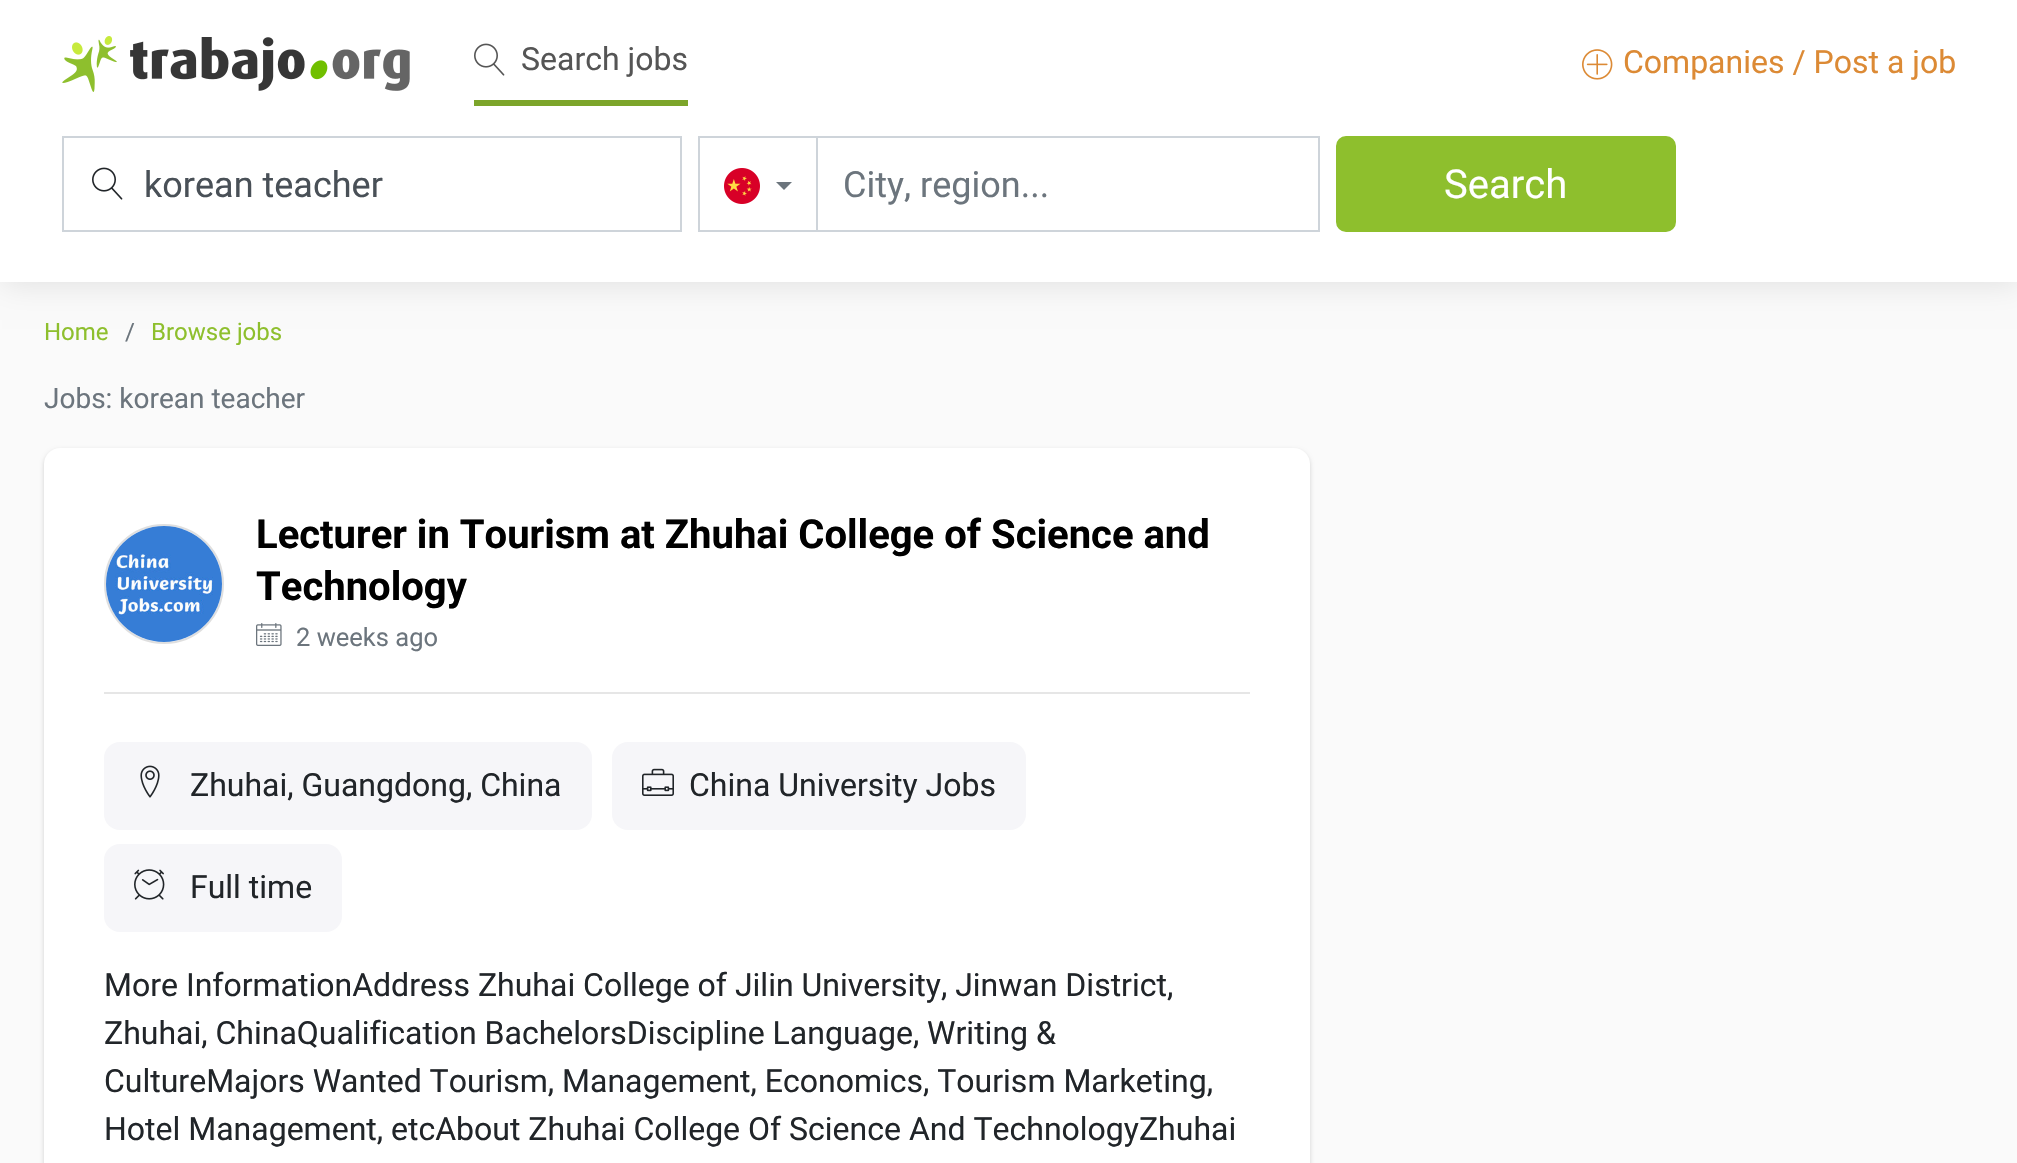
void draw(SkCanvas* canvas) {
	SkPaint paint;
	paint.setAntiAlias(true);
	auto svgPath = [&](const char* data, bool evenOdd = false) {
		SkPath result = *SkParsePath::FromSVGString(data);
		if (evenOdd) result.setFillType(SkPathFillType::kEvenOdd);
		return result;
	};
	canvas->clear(0xfffafafa);
	paint.setColor(0x1a000000);
	paint.setMaskFilter(SkMaskFilter::MakeBlur(kNormal_SkBlurStyle, 15));
	canvas->drawRect(SkRect::MakeXYWH(2, 2, 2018, 282), paint);
	paint.setMaskFilter(nullptr);
	paint.setColor(0xffffffff);
	canvas->drawRect(SkRect::MakeXYWH(0, 0, 2017, 282), paint);
	canvas->drawImageRect(SkImages::DeferredFromEncodedData(SkData::MakeFromFileName("img1.png")), SkRect::MakeXYWH(62, 36, 348, 56), SkSamplingOptions());
	paint.setColor(0xff7ca52a);
	canvas->drawRect(SkRect::MakeXYWH(474, 100, 214, 6), paint);
	canvas->drawImageRect(SkImages::DeferredFromEncodedData(SkData::MakeFromFileName("img2.png")), SkRect::MakeXYWH(474, 43, 31, 33), SkSamplingOptions());
	SkFont f1(fontMgr->matchFamilyStyle("Roboto", SkFontStyle::Normal()), 32);
	f1.setSubpixel(true);
	paint.setColor(0xff555555);
	canvas->drawString("Search jobs", 521, 70, f1, paint);
	canvas->drawImageRect(SkImages::DeferredFromEncodedData(SkData::MakeFromFileName("img3.png")), SkRect::MakeXYWH(1582, 49, 31, 31), SkSamplingOptions());
	paint.setColor(0xffdc8a35);
	canvas->drawString("Companies / Post a job", 1623, 73, f1, paint);
	paint.setStroke(true);
	paint.setStrokeWidth(2);
	paint.setColor(0xffced4da);
	canvas->drawRect(SkRect::MakeXYWH(63, 137, 618, 94), paint);
	canvas->drawImageRect(SkImages::DeferredFromEncodedData(SkData::MakeFromFileName("img4.png")), SkRect::MakeXYWH(92, 167, 31, 33), SkSamplingOptions());
	SkFont f2(fontMgr->matchFamilyStyle("Roboto", SkFontStyle::Normal()), 36);
	f2.setSubpixel(true);
	paint.setStroke(false);
	paint.setColor(0xff495057);
	canvas->drawString("korean teacher", 144, 197, f2, paint);
	paint.setStroke(true);
	paint.setColor(0xffced4da);
	canvas->drawRect(SkRect::MakeXYWH(817, 137, 502, 94), paint);
	canvas->drawRect(SkRect::MakeXYWH(699, 137, 118, 94), paint);
	canvas->drawImageRect(SkImages::DeferredFromEncodedData(SkData::MakeFromFileName("img5.png")), SkRect::MakeXYWH(724, 168, 36, 36), SkSamplingOptions());
	paint.setStroke(false);
	paint.setColor(0xff6c757d);
	canvas->drawPath(svgPath("M776 182H792L784 190Z"), paint);
	canvas->drawString("City, region...", 843, 197, f2, paint);
	paint.setColor(0xff8ebf2d);
	canvas->drawRoundRect(SkRect::MakeXYWH(1337, 137, 338, 94), 9, 9, paint);
	paint.setStroke(true);
	canvas->drawRoundRect(SkRect::MakeXYWH(1337, 137, 338, 94), 9, 9, paint);
	SkFont f3(fontMgr->matchFamilyStyle("Roboto", SkFontStyle::Normal()), 40);
	f3.setSubpixel(true);
	paint.setStroke(false);
	paint.setColor(0xffffffff);
	canvas->drawString("Search", 1444, 198, f3, paint);
	SkFont f4(fontMgr->matchFamilyStyle("Roboto", SkFontStyle::Normal()), 24);
	f4.setSubpixel(true);
	paint.setColor(0xff8ebf2d);
	canvas->drawString("Home", 44, 340, f4, paint);
	paint.setColor(0xff6c757d);
	canvas->drawString("/", 125, 340, f4, paint);
	paint.setColor(0xff8ebf2d);
	canvas->drawString("Browse jobs", 151, 340, f4, paint);
	SkFont f5(fontMgr->matchFamilyStyle("Roboto", SkFontStyle::Normal()), 28);
	f5.setSubpixel(true);
	paint.setColor(0xff6c757d);
	canvas->drawString("Jobs: korean teacher", 44, 408, f5, paint);
	paint.setColor(0x29000000);
	paint.setMaskFilter(SkMaskFilter::MakeBlur(kNormal_SkBlurStyle, 2));
	canvas->drawRoundRect(SkRect::MakeXYWH(44, 450, 1266, 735), 16, 16, paint);
	paint.setMaskFilter(nullptr);
	paint.setColor(0xffffffff);
	canvas->drawRoundRect(SkRect::MakeXYWH(44, 448, 1266, 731), 16, 16, paint);
	paint.setStroke(true);
	paint.setColor(0xffdfdfdf);
	canvas->drawCircle(164, 584, 59, paint);
	canvas->drawImageRect(SkImages::DeferredFromEncodedData(SkData::MakeFromFileName("img6.png")), SkRect::MakeXYWH(106, 526, 116, 116), SkSamplingOptions());
	SkFont f6(fontMgr->matchFamilyStyle("Roboto", SkFontStyle::Bold()), 40);
	f6.setSubpixel(true);
	paint.setStroke(false);
	paint.setColor(0xff000000);
	canvas->drawString("Lecturer in Tourism at Zhuhai College of Science and", 256, 548, f6, paint);
	canvas->drawString("Technology", 256, 600, f6, paint);
	canvas->drawImageRect(SkImages::DeferredFromEncodedData(SkData::MakeFromFileName("img7.png")), SkRect::MakeXYWH(256, 623, 26, 23), SkSamplingOptions());
	SkFont f7(fontMgr->matchFamilyStyle("Roboto", SkFontStyle::Normal()), 25.5);
	f7.setSubpixel(true);
	paint.setColor(0xff6c757d);
	canvas->drawString("2 weeks ago", 296, 646, f7, paint);
	paint.setColor(0xffe6e6e6);
	canvas->drawRect(SkRect::MakeXYWH(104, 692, 1146, 2), paint);
	paint.setColor(0xfff6f6f9);
	canvas->drawRoundRect(SkRect::MakeXYWH(104, 742, 488, 88), 16, 16, paint);
	canvas->drawImageRect(SkImages::DeferredFromEncodedData(SkData::MakeFromFileName("img8.png")), SkRect::MakeXYWH(140, 765, 20, 33), SkSamplingOptions());
	paint.setColor(0xff212529);
	canvas->drawString("Zhuhai, Guangdong, China", 190, 796, f1, paint);
	paint.setColor(0xfff6f6f9);
	canvas->drawRoundRect(SkRect::MakeXYWH(612, 742, 414, 88), 16, 16, paint);
	canvas->drawImageRect(SkImages::DeferredFromEncodedData(SkData::MakeFromFileName("img9.png")), SkRect::MakeXYWH(642, 768, 32, 28), SkSamplingOptions());
	paint.setColor(0xff212529);
	canvas->drawString("China University Jobs", 689, 796, f1, paint);
	paint.setColor(0xfff6f6f9);
	canvas->drawRoundRect(SkRect::MakeXYWH(104, 844, 238, 88), 16, 16, paint);
	canvas->drawImageRect(SkImages::DeferredFromEncodedData(SkData::MakeFromFileName("img10.png")), SkRect::MakeXYWH(134, 869, 31, 31), SkSamplingOptions());
	paint.setColor(0xff212529);
	canvas->drawString("Full time", 190, 898, f1, paint);
	canvas->drawString("More InformationAddress Zhuhai College of Jilin University, Jinwan District,", 104, 996, f1, paint);
	canvas->drawString("Zhuhai, ChinaQualification BachelorsDiscipline Language, Writing &", 104, 1044, f1, paint);
	canvas->drawString("CultureMajors Wanted Tourism, Management, Economics, Tourism Marketing,", 104, 1092, f1, paint);
	canvas->drawString("Hotel Management, etcAbout Zhuhai College Of Science And TechnologyZhuhai", 104, 1140, f1, paint);
}
